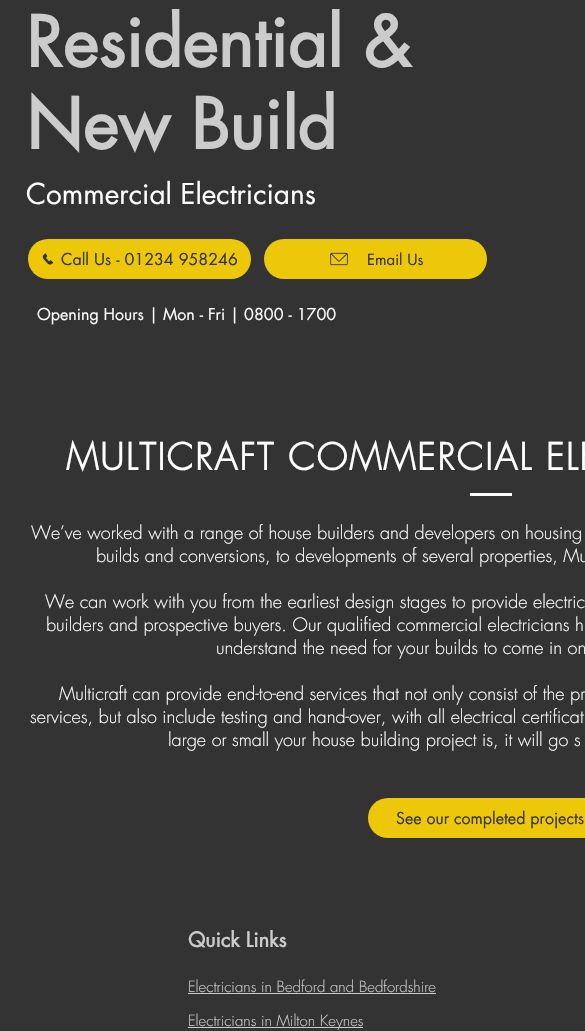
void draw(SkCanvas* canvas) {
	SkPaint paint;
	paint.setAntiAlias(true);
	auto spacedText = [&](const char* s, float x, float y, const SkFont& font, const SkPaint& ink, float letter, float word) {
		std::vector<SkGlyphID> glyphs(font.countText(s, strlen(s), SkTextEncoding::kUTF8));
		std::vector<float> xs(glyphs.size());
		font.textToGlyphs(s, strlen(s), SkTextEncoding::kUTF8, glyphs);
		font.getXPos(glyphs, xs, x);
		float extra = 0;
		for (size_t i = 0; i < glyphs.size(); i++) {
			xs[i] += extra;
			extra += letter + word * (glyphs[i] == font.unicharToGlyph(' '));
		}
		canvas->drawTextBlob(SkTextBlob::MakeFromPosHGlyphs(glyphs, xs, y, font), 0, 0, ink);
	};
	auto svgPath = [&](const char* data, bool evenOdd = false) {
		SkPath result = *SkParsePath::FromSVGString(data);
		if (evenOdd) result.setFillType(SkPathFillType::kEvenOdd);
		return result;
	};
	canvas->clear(0xff333333);
	SkFont f1(fontMgr->matchFamilyStyle("futura", SkFontStyle::Bold()), 68);
	f1.setSubpixel(true);
	paint.setColor(0xffcccccc);
	canvas->drawString("Residential &", 26, 67, f1, paint);
	canvas->drawString("New Build", 26, 149, f1, paint);
	SkFont f2(fontMgr->matchFamilyStyle("futura", SkFontStyle::Normal()), 28);
	f2.setSubpixel(true);
	paint.setColor(0xffffffff);
	canvas->drawString("Commercial Electricians", 26, 204, f2, paint);
	paint.setColor(0xffedc709);
	canvas->drawRoundRect(SkRect::MakeXYWH(28, 239, 223, 40), 20, 20, paint);
	canvas->drawImageRect(SkImages::DeferredFromEncodedData(SkData::MakeFromFileName("img1.png")), SkRect::MakeXYWH(42, 253, 12, 12), SkSamplingOptions());
	SkFont f3(fontMgr->matchFamilyStyle("futura", SkFontStyle::Normal()), 16);
	f3.setSubpixel(true);
	paint.setColor(0xff333333);
	canvas->drawString("Call Us - 01234 958246", 61, 265, f3, paint);
	paint.setColor(0xffedc709);
	canvas->drawRoundRect(SkRect::MakeXYWH(264, 239, 223, 40), 20, 20, paint);
	canvas->drawImageRect(SkImages::DeferredFromEncodedData(SkData::MakeFromFileName("img2.png")), SkRect::MakeXYWH(330, 252, 18, 14), SkSamplingOptions());
	SkFont f4(fontMgr->matchFamilyStyle("futura", SkFontStyle::Normal()), 15);
	f4.setSubpixel(true);
	paint.setColor(0xff333333);
	canvas->drawString("Email Us", 367, 265, f4, paint);
	paint.setColor(0xffffffff);
	canvas->drawString("Opening Hours | Mon - Fri | 0800 - 1700", 37, 320, f3, paint);
	SkFont f5(fontMgr->matchFamilyStyle("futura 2", SkFontStyle::Bold()), 36);
	f5.setSubpixel(true);
	spacedText("MULTICRAFT COMMERCIAL ELE", 66, 470, f5, paint, 1.8, 0);
	canvas->drawRect(SkRect::MakeXYWH(470, 493, 42, 3), paint);
	SkFont f6(fontMgr->matchFamilyStyle("futura", SkFontStyle(300, SkFontStyle::kNormal_Width, SkFontStyle::kUpright_Slant)), 18);
	f6.setSubpixel(true);
	canvas->drawString("We’ve worked with a range of house builders and developers on housing", 31, 539, f6, paint);
	canvas->drawString("builds and conversions, to developments of several properties, Mu", 96, 562, f6, paint);
	canvas->drawString("We can work with you from the earliest design stages to provide electric", 45, 608, f6, paint);
	canvas->drawString("builders and prospective buyers. Our qualified commercial electricians h", 46, 631, f6, paint);
	canvas->drawString("understand the need for your builds to come in on", 216, 654, f6, paint);
	canvas->drawString("Multicraft can provide end-to-end services that not only consist of the pr", 59, 700, f6, paint);
	canvas->drawString("services, but also include testing and hand-over, with all electrical certificat", 30, 723, f6, paint);
	canvas->drawString("large or small your house building project is, it will go s", 168, 746, f6, paint);
	paint.setColor(0xff272a2d);
	canvas->drawPath(svgPath("M368 818V819C368 830 377 839 388 839H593C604 839 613 830 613 819V818C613 829 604 838 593 838H388C377 838 368 829 368 818Z"), paint);
	paint.setColor(0xffedc709);
	canvas->drawRoundRect(SkRect::MakeXYWH(368, 798, 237, 40), 20, 20, paint);
	paint.setColor(0xff333333);
	canvas->drawString("See our completed projects", 396, 824, f3, paint);
	SkFont f7(fontMgr->matchFamilyStyle("futura", SkFontStyle::Bold()), 20);
	f7.setSubpixel(true);
	paint.setColor(0xffcccccc);
	canvas->drawString("Quick Links", 188, 947, f7, paint);
	SkFont f8(fontMgr->matchFamilyStyle("futura", SkFontStyle(300, SkFontStyle::kNormal_Width, SkFontStyle::kUpright_Slant)), 15);
	f8.setSubpixel(true);
	canvas->drawString("Electricians in Bedford and Bedfordshire", 188, 992, f8, paint);
	canvas->drawRect(SkRect::MakeXYWH(188, 993, 248, 1), paint);
	canvas->drawRect(SkRect::MakeXYWH(188, 1027, 175, 1), paint);
	canvas->drawString("Electricians in Milton Keynes", 188, 1026, f8, paint);
}
